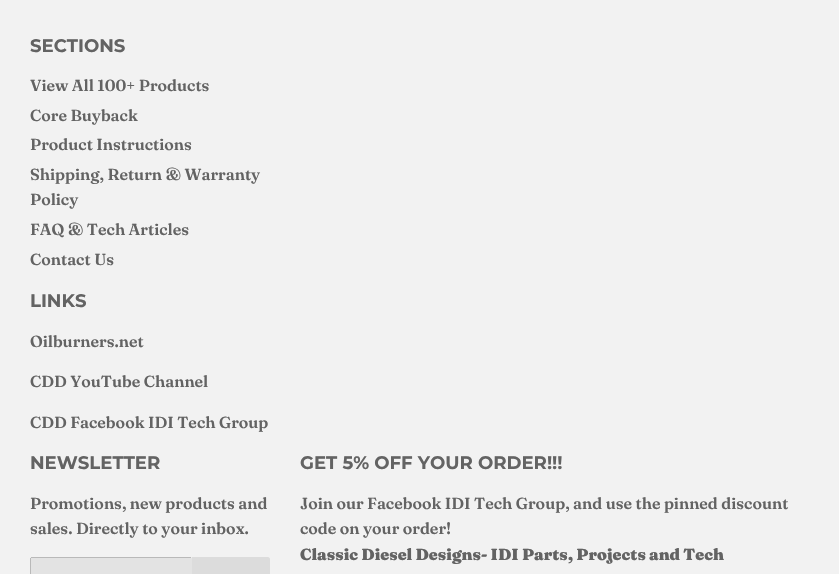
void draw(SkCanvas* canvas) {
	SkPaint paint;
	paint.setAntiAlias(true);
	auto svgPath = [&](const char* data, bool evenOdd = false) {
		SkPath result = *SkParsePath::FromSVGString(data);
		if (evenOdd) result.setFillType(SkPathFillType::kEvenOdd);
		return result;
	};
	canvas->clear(0xfff2f2f2);
	SkFont f1(fontMgr->matchFamilyStyle("Montserrat", SkFontStyle::Bold()), 18.1);
	f1.setSubpixel(true);
	paint.setColor(0xff636363);
	canvas->drawString("SECTIONS", 30, 52, f1, paint);
	SkFont f2(fontMgr->matchFamilyStyle("Fraunces", SkFontStyle(600, SkFontStyle::kNormal_Width, SkFontStyle::kUpright_Slant)), 16);
	f2.setSubpixel(true);
	canvas->drawString("View All 100+ Products", 30, 91, f2, paint);
	canvas->drawString("Core Buyback", 30, 121, f2, paint);
	canvas->drawString("Product Instructions", 30, 150, f2, paint);
	canvas->drawString("Shipping, Return & Warranty", 30, 180, f2, paint);
	canvas->drawString("Policy", 30, 205, f2, paint);
	canvas->drawString("FAQ & Tech Articles", 30, 235, f2, paint);
	canvas->drawString("Contact Us", 30, 265, f2, paint);
	canvas->drawString("LINKS", 30, 307, f1, paint);
	canvas->drawString("Oilburners.net", 30, 347, f2, paint);
	canvas->drawString("CDD YouTube Channel", 30, 387, f2, paint);
	canvas->drawString("CDD Facebook IDI Tech Group", 30, 428, f2, paint);
	canvas->drawString("NEWSLETTER", 30, 469, f1, paint);
	canvas->drawString("Promotions, new products and", 30, 509, f2, paint);
	canvas->drawString("sales. Directly to your inbox.", 30, 534, f2, paint);
	paint.setColor(0xffe3e3e3);
	canvas->drawRoundRect(SkRect::MakeXYWH(30, 557, 162, 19), 2, 2, paint);
	paint.setColor(0xffb9b9b9);
	canvas->drawRect(SkRect::MakeXYWH(31, 557, 160, 1), paint);
	canvas->drawRect(SkRect::MakeXYWH(30, 558, 1, 16), paint);
	paint.setColor(0xffdcdcdc);
	canvas->drawPath(svgPath("M192 557H268C269 557 270 558 270 559V574C270 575 269 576 268 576H192Z"), paint);
	paint.setColor(0xff636363);
	canvas->drawString("GET 5% OFF YOUR ORDER!!!", 300, 469, f1, paint);
	canvas->drawString("Join our Facebook IDI Tech Group, and use the pinned discount", 300, 509, f2, paint);
	canvas->drawString("code on your order!", 300, 534, f2, paint);
	SkFont f3(fontMgr->matchFamilyStyle("Fraunces", SkFontStyle(900, SkFontStyle::kNormal_Width, SkFontStyle::kUpright_Slant)), 16);
	f3.setSubpixel(true);
	canvas->drawString("Classic Diesel Designs- IDI Parts, Projects and Tech", 300, 560, f3, paint);
}
